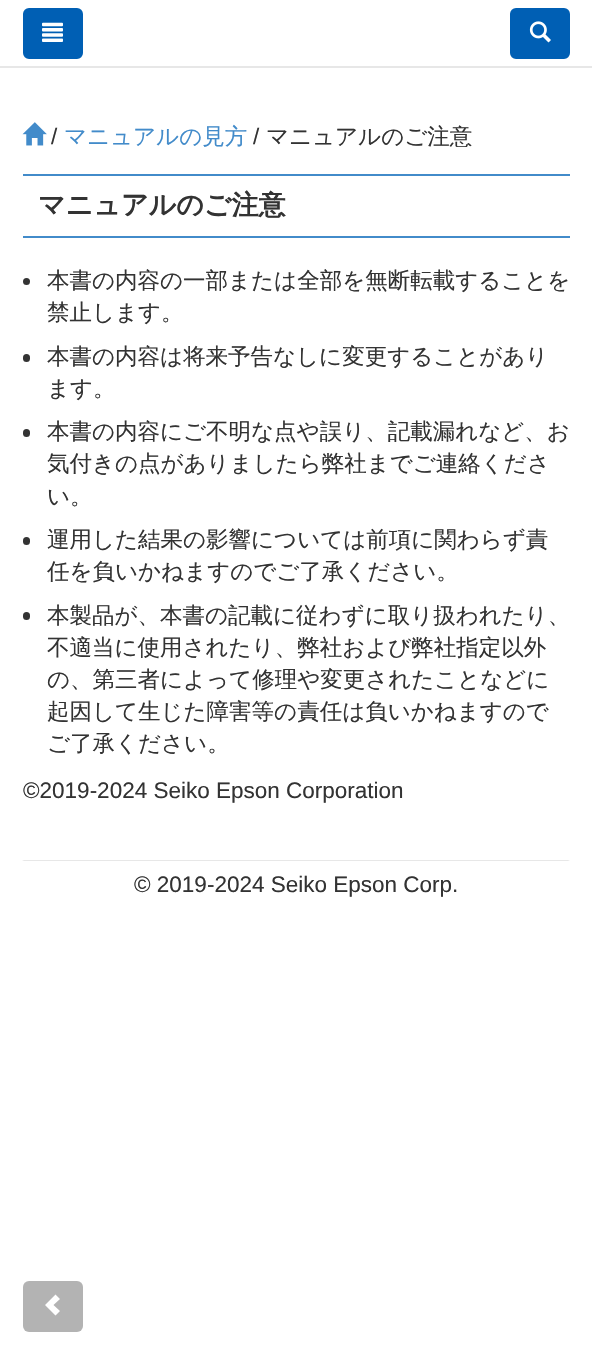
void draw(SkCanvas* canvas) {
	SkPaint paint;
	paint.setAntiAlias(true);
	auto svgPath = [&](const char* data, bool evenOdd = false) {
		SkPath result = *SkParsePath::FromSVGString(data);
		if (evenOdd) result.setFillType(SkPathFillType::kEvenOdd);
		return result;
	};
	canvas->clear(0xffffffff);
	paint.setColor(0xffe7e7e7);
	canvas->drawRect(SkRect::MakeXYWH(0, 66, 592, 2), paint);
	paint.setColor(0xff005fb4);
	canvas->drawRoundRect(SkRect::MakeXYWH(24, 9, 58, 49), 5, 5, paint);
	paint.setStroke(true);
	paint.setStrokeWidth(2);
	canvas->drawRoundRect(SkRect::MakeXYWH(24, 9, 58, 49), 5, 5, paint);
	canvas->drawImageRect(SkImages::DeferredFromEncodedData(SkData::MakeFromFileName("img1.png")), SkRect::MakeXYWH(42, 22, 21, 20), SkSamplingOptions());
	paint.setStroke(false);
	canvas->drawRoundRect(SkRect::MakeXYWH(511, 9, 58, 49), 5, 5, paint);
	paint.setStroke(true);
	canvas->drawRoundRect(SkRect::MakeXYWH(511, 9, 58, 49), 5, 5, paint);
	canvas->drawImageRect(SkImages::DeferredFromEncodedData(SkData::MakeFromFileName("img2.png")), SkRect::MakeXYWH(529, 21, 22, 22), SkSamplingOptions());
	canvas->drawImageRect(SkImages::DeferredFromEncodedData(SkData::MakeFromFileName("img3.png")), SkRect::MakeXYWH(22, 122, 25, 24), SkSamplingOptions());
	SkFont f1(fontMgr->matchFamilyStyle("Liberation Sans", SkFontStyle::Normal()), 22.5);
	f1.setSubpixel(true);
	paint.setStroke(false);
	paint.setColor(0xff333333);
	canvas->drawString("/", 51, 144, f1, paint);
	SkFont f2(fontMgr->matchFamilyStyle("WenQuanYi Zen Hei", SkFontStyle(500, SkFontStyle::kNormal_Width, SkFontStyle::kUpright_Slant)), 22.5);
	f2.setSubpixel(true);
	paint.setColor(0xff428bca);
	canvas->drawString("マニュアルの見方", 64, 144, f2, paint);
	paint.setColor(0xff333333);
	canvas->drawString("/", 253, 144, f1, paint);
	canvas->drawString("マニュアルのご注意", 266, 144, f2, paint);
	paint.setColor(0xff428bca);
	canvas->drawRect(SkRect::MakeXYWH(23, 174, 547, 2), paint);
	canvas->drawRect(SkRect::MakeXYWH(23, 236, 547, 2), paint);
	SkFont f3(fontMgr->matchFamilyStyle("WenQuanYi Zen Hei", SkFontStyle::Bold()), 27);
	f3.setSubpixel(true);
	paint.setColor(0xff333333);
	canvas->drawString("マニュアルのご注意", 38, 214, f3, paint);
	canvas->drawCircle(26.5, 281.5, 3.5, paint);
	canvas->drawString("本書の内容の一部または全部を無断転載することを", 47, 288, f2, paint);
	canvas->drawString("禁止します。", 47, 320, f2, paint);
	canvas->drawRoundRect(SkRect::MakeXYWH(23, 354, 7, 8), 3.5, 3.5, paint);
	canvas->drawString("本書の内容は将来予告なしに変更することがあり", 47, 364, f2, paint);
	canvas->drawString("ます。", 47, 396, f2, paint);
	canvas->drawRoundRect(SkRect::MakeXYWH(23, 429, 7, 8), 3.5, 3.5, paint);
	canvas->drawString("本書の内容にご不明な点や誤り、記載漏れなど、お", 47, 439, f2, paint);
	canvas->drawString("気付きの点がありましたら弊社までご連絡くださ", 47, 471, f2, paint);
	canvas->drawString("い。", 47, 504, f2, paint);
	canvas->drawRoundRect(SkRect::MakeXYWH(23, 537, 7, 8), 3.5, 3.5, paint);
	canvas->drawString("運用した結果の影響については前項に関わらず責", 47, 547, f2, paint);
	canvas->drawString("任を負いかねますのでご了承ください。", 47, 579, f2, paint);
	canvas->drawRoundRect(SkRect::MakeXYWH(23, 612, 7, 8), 3.5, 3.5, paint);
	canvas->drawString("本製品が、本書の記載に従わずに取り扱われたり、", 47, 623, f2, paint);
	canvas->drawString("不適当に使用されたり、弊社および弊社指定以外", 47, 655, f2, paint);
	canvas->drawString("の、第三者によって修理や変更されたことなどに", 47, 687, f2, paint);
	canvas->drawString("起因して生じた障害等の責任は負いかねますので", 47, 719, f2, paint);
	canvas->drawString("ご了承ください。", 47, 751, f2, paint);
	canvas->drawString("©2019-2024 Seiko Epson Corporation", 23, 798, f1, paint);
	paint.setColor(0xffb3b3b3);
	canvas->drawRoundRect(SkRect::MakeXYWH(23, 1281, 60, 51), 6, 6, paint);
	paint.setColor(0xffffffff);
	canvas->drawPath(svgPath("M45 1305L55.5 1315.5L60 1311L53.5 1305L60 1299L55.5 1294.5Z"), paint);
	paint.setColor(0xffe7e7e7);
	canvas->drawPath(svgPath("M22 860H570L568 861H24Z"), paint);
	paint.setColor(0xff333333);
	canvas->drawString("© 2019-2024 Seiko Epson Corp.", 134, 892, f1, paint);
}
